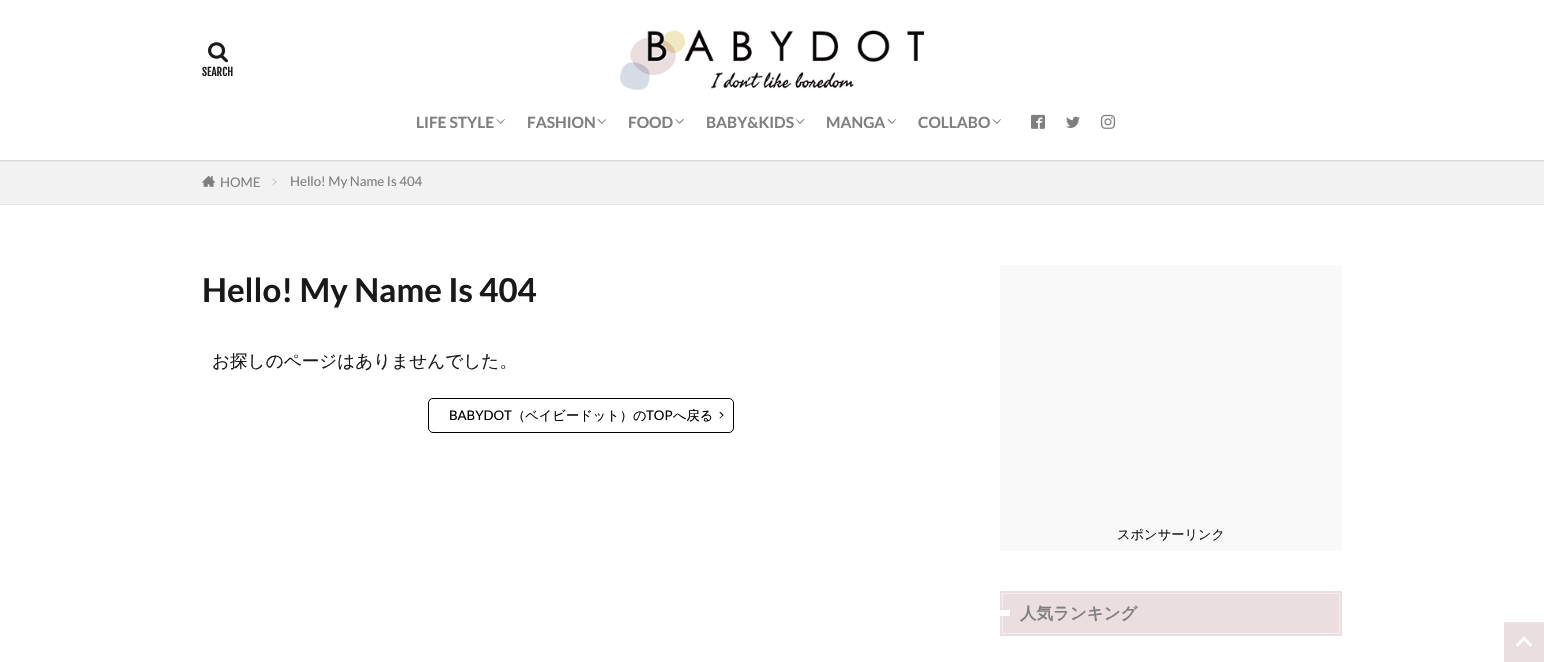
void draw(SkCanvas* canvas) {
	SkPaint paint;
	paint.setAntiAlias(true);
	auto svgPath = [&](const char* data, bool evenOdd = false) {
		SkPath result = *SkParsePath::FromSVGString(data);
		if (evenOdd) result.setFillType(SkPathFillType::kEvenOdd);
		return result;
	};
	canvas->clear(0xffffffff);
	paint.setColor(0xfff2f2f2);
	canvas->drawRect(SkRect::MakeXYWH(0, 160, 1544, 44), paint);
	canvas->save();
	canvas->clipRect(SkRect::MakeXYWH(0, 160, 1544, 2));
	paint.setColor(0x26000000);
	paint.setMaskFilter(SkMaskFilter::MakeBlur(kNormal_SkBlurStyle, 1));
	canvas->drawRect(SkRect::MakeXYWH(0, 1, 1544, 160), paint);
	paint.setMaskFilter(nullptr);
	canvas->restore();
	canvas->drawImageRect(SkImages::DeferredFromEncodedData(SkData::MakeFromFileName("img1.png")), SkRect::MakeXYWH(208, 42, 20, 21), SkSamplingOptions());
	SkFont f1(fontMgr->matchFamilyStyle("Fjalla One", SkFontStyle::Normal()), 11);
	f1.setSubpixel(true);
	paint.setColor(0xff191919);
	canvas->drawString("SEARCH", 202, 76, f1, paint);
	canvas->drawImageRect(SkImages::DeferredFromEncodedData(SkData::MakeFromFileName("img2.png")), SkRect::MakeXYWH(620, 30, 304, 60), SkSamplingOptions());
	SkFont f2(fontMgr->matchFamilyStyle("Lato", SkFontStyle::Bold()), 15.5);
	f2.setSubpixel(true);
	paint.setColor(0xff7f7f7f);
	canvas->drawString("LIFE STYLE", 416, 128, f2, paint);
	paint.setColor(0xff808080);
	canvas->drawPath(svgPath("M505 119.5L500.5 124V122.5L504.5 119Z"), paint);
	canvas->drawPath(svgPath("M500.5 124L496.5 119.5L497 119L500.5 122.5Z"), paint);
	paint.setColor(0xff7f7f7f);
	canvas->drawString("FASHION", 527, 128, f2, paint);
	paint.setColor(0xff808080);
	canvas->drawPath(svgPath("M606 119.5L602 124V122.5L605.5 119ZM602 124L597.5 119.5L598.5 119L602 122.5Z"), paint);
	paint.setColor(0xff7f7f7f);
	canvas->drawString("FOOD", 628, 128, f2, paint);
	paint.setColor(0xff808080);
	canvas->drawPath(svgPath("M684 119.5L679.5 124V122.5L683 119Z"), paint);
	canvas->drawPath(svgPath("M679.5 124L675.5 119.5L676 119L679.5 122.5Z"), paint);
	paint.setColor(0xff7f7f7f);
	canvas->drawString("BABY&KIDS", 706, 128, f2, paint);
	paint.setColor(0xff808080);
	canvas->drawPath(svgPath("M804.5 119.5L800 124V122.5L803.5 119ZM800 124L796 119.5L796.5 119L800 122.5Z"), paint);
	paint.setColor(0xff7f7f7f);
	canvas->drawString("MANGA", 826, 128, f2, paint);
	paint.setColor(0xff808080);
	canvas->drawPath(svgPath("M896 119.5L892 124V122.5L895.5 119ZM892 124L887.5 119.5L888.5 119L892 122.5Z"), paint);
	paint.setColor(0xff7f7f7f);
	canvas->drawString("COLLABO", 918, 128, f2, paint);
	paint.setColor(0xff808080);
	canvas->drawPath(svgPath("M1001 119.5L997 124V122.5L1000.5 119ZM997 124L992.5 119.5L993 119L997 122.5Z"), paint);
	canvas->drawImageRect(SkImages::DeferredFromEncodedData(SkData::MakeFromFileName("img3.png")), SkRect::MakeXYWH(1031, 114, 14, 15), SkSamplingOptions());
	canvas->drawImageRect(SkImages::DeferredFromEncodedData(SkData::MakeFromFileName("img4.png")), SkRect::MakeXYWH(1066, 116, 14, 12), SkSamplingOptions());
	canvas->drawImageRect(SkImages::DeferredFromEncodedData(SkData::MakeFromFileName("img5.png")), SkRect::MakeXYWH(1101, 114, 14, 15), SkSamplingOptions());
	paint.setColor(0xffe6e6e6);
	canvas->drawRect(SkRect::MakeXYWH(0, 204, 1544, 1), paint);
	canvas->drawImageRect(SkImages::DeferredFromEncodedData(SkData::MakeFromFileName("img6.png")), SkRect::MakeXYWH(202, 175, 14, 12), SkSamplingOptions());
	SkFont f3(fontMgr->matchFamilyStyle("Lato", SkFontStyle::Normal()), 13.25);
	f3.setSubpixel(true);
	paint.setColor(0xff7f7f7f);
	canvas->drawString("HOME", 220, 187, f3, paint);
	paint.setColor(0xffbfbfbf);
	canvas->drawPath(svgPath("M273 178.5L276.5 182L276 182.5L272.5 179Z"), paint);
	canvas->drawPath(svgPath("M276 181L276.5 182L273 185.5L272.5 185Z"), paint);
	paint.setColor(0xff7f7f7f);
	canvas->drawString("Hello! My Name Is 404", 290, 186, f3, paint);
	SkFont f4(fontMgr->matchFamilyStyle("Lato", SkFontStyle::Bold()), 33);
	f4.setSubpixel(true);
	paint.setColor(0xff191919);
	canvas->drawString("Hello! My Name Is 404", 202, 302, f4, paint);
	SkFont f5(fontMgr->matchFamilyStyle("WenQuanYi Zen Hei", SkFontStyle(500, SkFontStyle::kNormal_Width, SkFontStyle::kUpright_Slant)), 17.6);
	f5.setSubpixel(true);
	canvas->drawString("お探しのページはありませんでした。", 212, 367, f5, paint);
	paint.setStroke(true);
	paint.setStrokeWidth(1);
	paint.setColor(0xff000000);
	canvas->drawRoundRect(SkRect::MakeXYWH(428.5, 398.5, 305, 34), 4.5, 4.5, paint);
	paint.setStroke(false);
	canvas->drawString("BABYDOT", 449, 420, f3, paint);
	SkFont f6(fontMgr->matchFamilyStyle("WenQuanYi Zen Hei", SkFontStyle(500, SkFontStyle::kNormal_Width, SkFontStyle::kUpright_Slant)), 13.25);
	f6.setSubpixel(true);
	canvas->drawString("（ベイビードット）の", 512, 420, f6, paint);
	canvas->drawString("TOP", 646, 420, f3, paint);
	canvas->drawString("へ戻る", 673, 420, f6, paint);
	canvas->drawPath(svgPath("M720 411.5L723.5 415L723 416L719.5 412.5Z"), paint);
	canvas->drawPath(svgPath("M723 414.5L723.5 415L720 418.5L719.5 418Z"), paint);
	paint.setColor(0xfff9f9f9);
	canvas->drawRect(SkRect::MakeXYWH(1000, 265, 342, 286), paint);
	paint.setColor(0xff191919);
	canvas->drawString("スポンサーリンク", 1117, 539, f6, paint);
	paint.setColor(0xffebdee0);
	canvas->drawRect(SkRect::MakeXYWH(1000, 591, 342, 45), paint);
	paint.setStroke(true);
	paint.setColor(0xfff5eff0);
	canvas->drawRect(SkRect::MakeXYWH(1002.5, 593.5, 337, 40), paint);
	paint.setStroke(false);
	paint.setColor(0xffffffff);
	canvas->drawRect(SkRect::MakeXYWH(1000, 610, 10, 6), paint);
	SkFont f7(fontMgr->matchFamilyStyle("WenQuanYi Zen Hei", SkFontStyle::Bold()), 16.5);
	f7.setSubpixel(true);
	paint.setColor(0xff7f7f7f);
	canvas->drawString("人気ランキング", 1020, 619, f7, paint);
	paint.setColor(0xffebdee0);
	canvas->drawRect(SkRect::MakeXYWH(1504, 622, 40, 40), paint);
	paint.setColor(0xffffffff);
	canvas->drawPath(svgPath("M1515.5 645L1524 636.5L1526 638.5L1517.5 647Z"), paint);
	canvas->drawPath(svgPath("M1522 638.5L1524 636.5L1532.5 645L1530.5 647Z"), paint);
}
